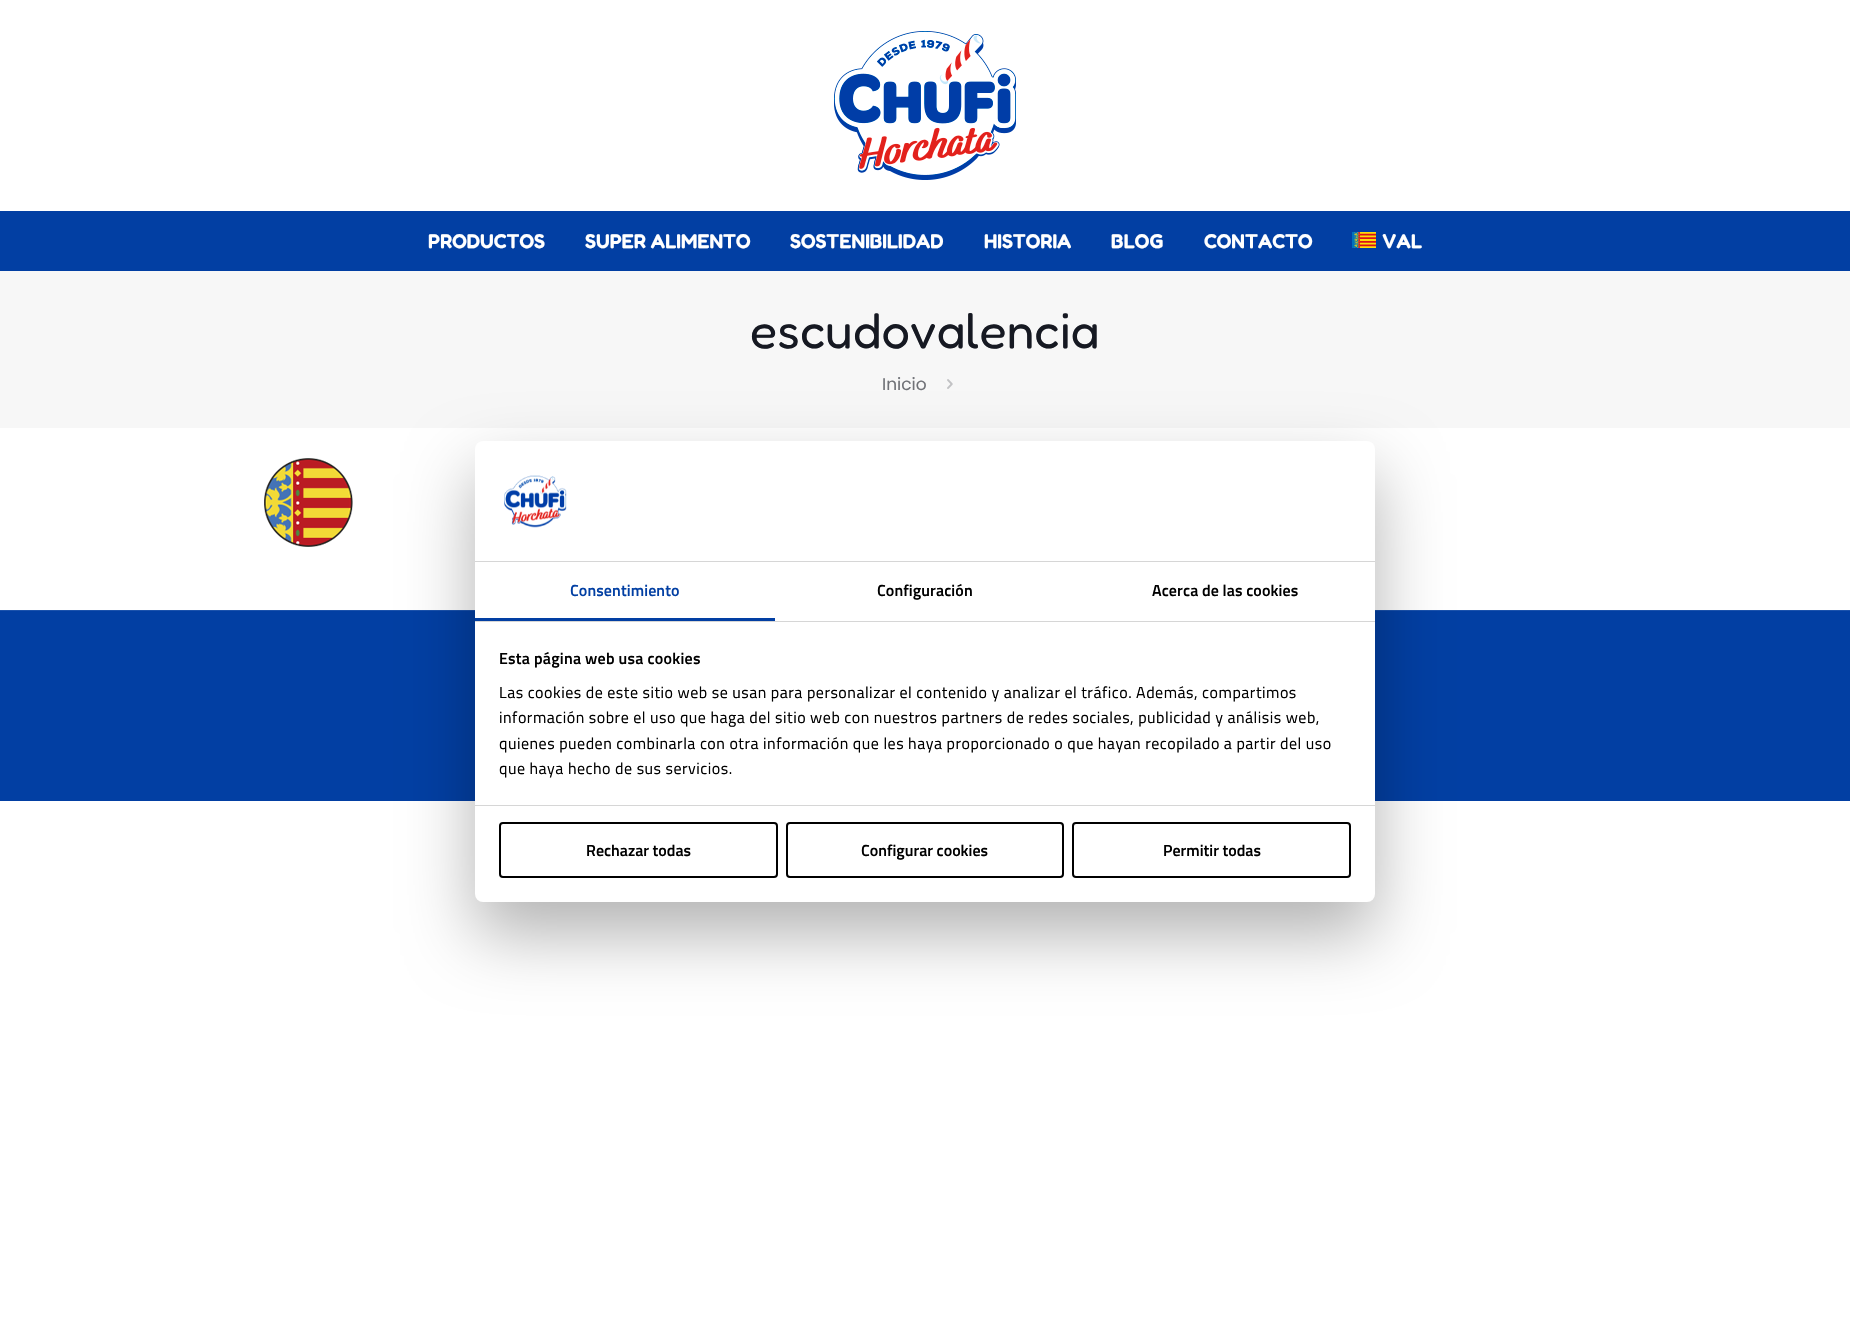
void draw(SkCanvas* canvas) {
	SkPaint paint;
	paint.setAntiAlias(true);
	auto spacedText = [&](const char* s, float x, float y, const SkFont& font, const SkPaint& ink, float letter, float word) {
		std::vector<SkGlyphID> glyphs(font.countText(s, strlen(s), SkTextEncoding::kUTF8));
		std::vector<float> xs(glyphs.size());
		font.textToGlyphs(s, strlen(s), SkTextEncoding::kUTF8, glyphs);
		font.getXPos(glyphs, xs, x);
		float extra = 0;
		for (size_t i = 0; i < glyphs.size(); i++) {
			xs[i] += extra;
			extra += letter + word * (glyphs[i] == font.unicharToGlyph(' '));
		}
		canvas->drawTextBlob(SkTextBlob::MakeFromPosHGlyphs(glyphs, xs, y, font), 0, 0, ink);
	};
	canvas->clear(0xffffffff);
	canvas->drawImageRect(SkImages::DeferredFromEncodedData(SkData::MakeFromFileName("img1.png")), SkRect::MakeXYWH(834, 31, 182, 149), SkSamplingOptions());
	paint.setColor(0xff023fa3);
	canvas->drawRect(SkRect::MakeXYWH(0, 211, 1850, 60), paint);
	SkFont f1(fontMgr->matchFamilyStyle("Fredoka", SkFontStyle(600, SkFontStyle::kNormal_Width, SkFontStyle::kUpright_Slant)), 20);
	f1.setSubpixel(true);
	paint.setColor(0xffffffff);
	canvas->drawString("PRODUCTOS", 428, 248, f1, paint);
	canvas->drawString("SUPER ALIMENTO", 585, 248, f1, paint);
	canvas->drawString("SOSTENIBILIDAD", 790, 248, f1, paint);
	canvas->drawString("HISTORIA", 984, 248, f1, paint);
	canvas->drawString("BLOG", 1111, 248, f1, paint);
	canvas->drawString("CONTACTO", 1204, 248, f1, paint);
	canvas->drawImageRect(SkImages::DeferredFromEncodedData(SkData::MakeFromFileName("img2.png")), SkRect::MakeXYWH(1352, 232, 24, 16), SkSamplingOptions());
	canvas->drawString("VAL", 1382, 248, f1, paint);
	paint.setColor(0xfff7f7f7);
	canvas->drawRect(SkRect::MakeXYWH(0, 271, 1850, 157), paint);
	SkFont f2(fontMgr->matchFamilyStyle("Fredoka", SkFontStyle::Normal()), 50);
	f2.setSubpixel(true);
	paint.setColor(0xff161922);
	canvas->drawString("escudovalencia", 750, 348, f2, paint);
	SkFont f3(fontMgr->matchFamilyStyle("Poppins", SkFontStyle::Normal()), 17);
	f3.setSubpixel(true);
	paint.setColor(0xff707277);
	canvas->drawString("Inicio", 882, 390, f3, paint);
	canvas->drawImageRect(SkImages::DeferredFromEncodedData(SkData::MakeFromFileName("img3.png")), SkRect::MakeXYWH(947, 379, 6, 10), SkSamplingOptions());
	canvas->drawImageRect(SkImages::DeferredFromEncodedData(SkData::MakeFromFileName("img4.png")), SkRect::MakeXYWH(264, 458, 89, 89), SkSamplingOptions());
	paint.setColor(0xff023fa3);
	canvas->drawRect(SkRect::MakeXYWH(0, 611, 1850, 190), paint);
	paint.setColor(0xff1b52ac);
	canvas->drawRect(SkRect::MakeXYWH(0, 610, 1850, 1), paint);
	paint.setColor(0x4d000000);
	paint.setMaskFilter(SkMaskFilter::MakeBlur(kNormal_SkBlurStyle, 34));
	canvas->drawRoundRect(SkRect::MakeXYWH(475, 473, 900, 461), 8, 8, paint);
	paint.setMaskFilter(nullptr);
	paint.setColor(0xffffffff);
	canvas->drawRoundRect(SkRect::MakeXYWH(475, 441, 900, 461), 8, 8, paint);
	paint.setColor(0xffd6d6d6);
	canvas->drawRect(SkRect::MakeXYWH(475, 561, 900, 1), paint);
	canvas->drawImageRect(SkImages::DeferredFromEncodedData(SkData::MakeFromFileName("img5.png")), SkRect::MakeXYWH(504, 475, 63, 53), SkSamplingOptions());
	canvas->drawRect(SkRect::MakeXYWH(475, 621, 900, 1), paint);
	paint.setColor(0xff023fa3);
	canvas->drawRect(SkRect::MakeXYWH(475, 618, 300, 3), paint);
	SkFont f4(fontMgr->matchFamilyStyle("Titillium Web", SkFontStyle(600, SkFontStyle::kNormal_Width, SkFontStyle::kUpright_Slant)), 16);
	f4.setSubpixel(true);
	spacedText("Consentimiento", 570, 596, f4, paint, 0.1, 0);
	paint.setColor(0xff000000);
	spacedText("Configuración", 877, 596, f4, paint, 0.1, 0);
	spacedText("Acerca de las cookies", 1152, 596, f4, paint, 0.1, 0);
	paint.setColor(0xffd6d6d6);
	canvas->drawRect(SkRect::MakeXYWH(475, 805, 900, 1), paint);
	paint.setColor(0xff000000);
	spacedText("Esta página web usa cookies", 499, 664, f4, paint, 0.25, 0);
	SkFont f5(fontMgr->matchFamilyStyle("Titillium Web", SkFontStyle::Normal()), 16);
	f5.setSubpixel(true);
	spacedText("Las cookies de este sitio web se usan para personalizar el contenido y analizar el tráfico. Además, compartimos", 499, 698, f5, paint, 0.5, 0);
	spacedText("información sobre el uso que haga del sitio web con nuestros partners de redes sociales, publicidad y análisis web,", 499, 723, f5, paint, 0.5, 0);
	spacedText("quienes pueden combinarla con otra información que les haya proporcionado o que hayan recopilado a partir del uso", 499, 749, f5, paint, 0.5, 0);
	spacedText("que haya hecho de sus servicios.", 499, 774, f5, paint, 0.5, 0);
	paint.setStroke(true);
	paint.setStrokeWidth(2);
	canvas->drawRoundRect(SkRect::MakeXYWH(500, 823, 277, 54), 3, 3, paint);
	paint.setStroke(false);
	canvas->drawString("Rechazar todas", 586, 856, f4, paint);
	paint.setStroke(true);
	canvas->drawRoundRect(SkRect::MakeXYWH(787, 823, 276, 54), 3, 3, paint);
	paint.setStroke(false);
	canvas->drawString("Configurar cookies", 861, 856, f4, paint);
	paint.setStroke(true);
	canvas->drawRoundRect(SkRect::MakeXYWH(1073, 823, 277, 54), 3, 3, paint);
	paint.setStroke(false);
	canvas->drawString("Permitir todas", 1163, 856, f4, paint);
}
